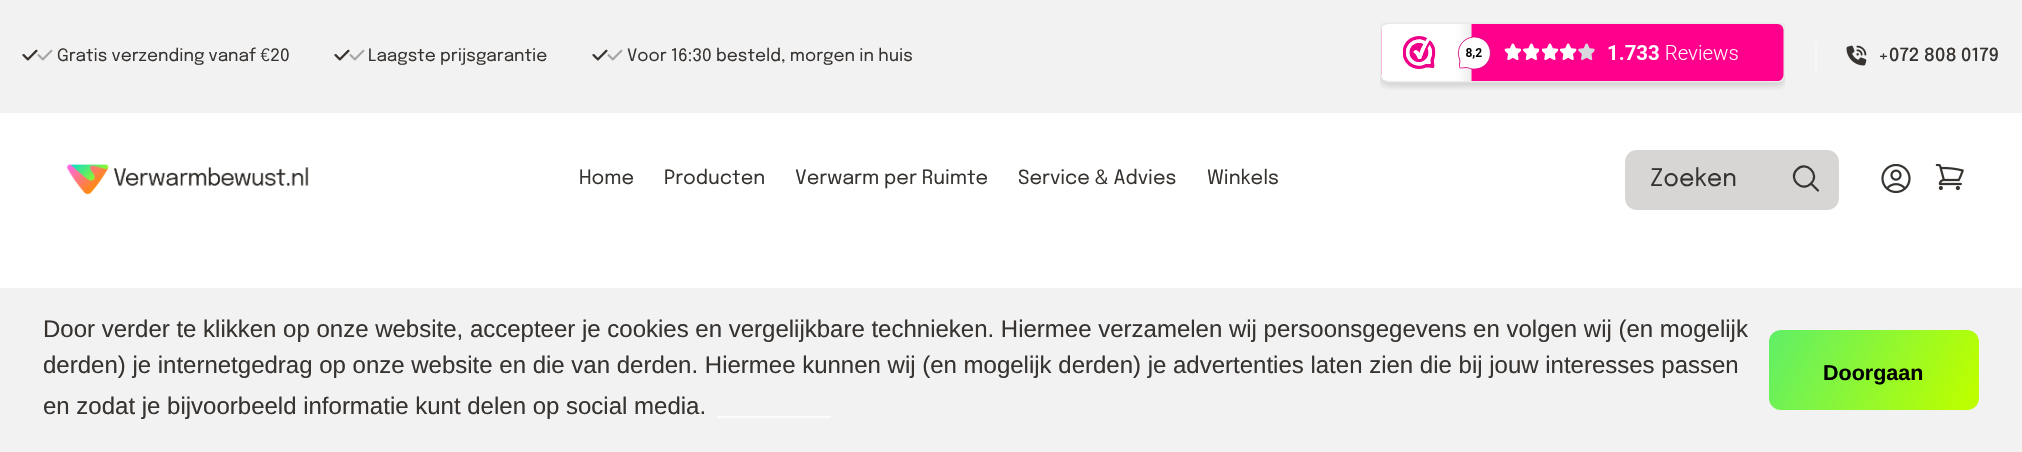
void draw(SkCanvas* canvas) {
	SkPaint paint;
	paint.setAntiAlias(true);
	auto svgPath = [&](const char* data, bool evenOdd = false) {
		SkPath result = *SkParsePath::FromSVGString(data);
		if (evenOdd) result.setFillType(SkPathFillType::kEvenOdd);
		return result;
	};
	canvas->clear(0xffffffff);
	paint.setColor(0xfff3f2f2);
	canvas->drawRect(SkRect::MakeXYWH(0, 0, 2022, 113), paint);
	canvas->drawImageRect(SkImages::DeferredFromEncodedData(SkData::MakeFromFileName("img1.png")), SkRect::MakeXYWH(22, 49, 16, 12), SkSamplingOptions());
	canvas->drawImageRect(SkImages::DeferredFromEncodedData(SkData::MakeFromFileName("img2.png")), SkRect::MakeXYWH(22, 49, 31, 12), SkSamplingOptions());
	SkFont f1(fontMgr->matchFamilyStyle("Epilogue", SkFontStyle::Normal()), 17.1);
	f1.setSubpixel(true);
	paint.setColor(0xff363330);
	canvas->drawString("Gratis verzending vanaf €20", 57, 61, f1, paint);
	canvas->drawImageRect(SkImages::DeferredFromEncodedData(SkData::MakeFromFileName("img1.png")), SkRect::MakeXYWH(334, 49, 16, 12), SkSamplingOptions());
	canvas->drawImageRect(SkImages::DeferredFromEncodedData(SkData::MakeFromFileName("img2.png")), SkRect::MakeXYWH(334, 49, 31, 12), SkSamplingOptions());
	canvas->drawString("Laagste prijsgarantie", 368, 61, f1, paint);
	canvas->drawImageRect(SkImages::DeferredFromEncodedData(SkData::MakeFromFileName("img1.png")), SkRect::MakeXYWH(592, 49, 16, 12), SkSamplingOptions());
	canvas->drawImageRect(SkImages::DeferredFromEncodedData(SkData::MakeFromFileName("img2.png")), SkRect::MakeXYWH(592, 49, 31, 12), SkSamplingOptions());
	canvas->drawString("Voor 16:30 besteld, morgen in huis", 627, 61, f1, paint);
	canvas->drawImageRect(SkImages::DeferredFromEncodedData(SkData::MakeFromFileName("img3.png")), SkRect::MakeXYWH(1380, 22, 405, 68), SkSamplingOptions());
	paint.setColor(0xfff7f6f6);
	canvas->drawRect(SkRect::MakeXYWH(1815, 42, 2, 30), paint);
	canvas->drawImageRect(SkImages::DeferredFromEncodedData(SkData::MakeFromFileName("img4.png")), SkRect::MakeXYWH(1846, 45, 21, 21), SkSamplingOptions());
	SkFont f2(fontMgr->matchFamilyStyle("Epilogue", SkFontStyle(500, SkFontStyle::kNormal_Width, SkFontStyle::kUpright_Slant)), 18);
	f2.setSubpixel(true);
	paint.setColor(0xff363330);
	canvas->drawString("+072 808 0179", 1878, 61, f2, paint);
	canvas->drawImageRect(SkImages::DeferredFromEncodedData(SkData::MakeFromFileName("img5.png")), SkRect::MakeXYWH(66, 164, 243, 31), SkSamplingOptions());
	SkFont f3(fontMgr->matchFamilyStyle("Epilogue", SkFontStyle::Normal()), 19.5);
	f3.setSubpixel(true);
	canvas->drawString("Home", 579, 184, f3, paint);
	canvas->drawString("Producten", 664, 184, f3, paint);
	canvas->drawString("Verwarm per Ruimte", 795, 184, f3, paint);
	canvas->drawString("Service & Advies", 1018, 184, f3, paint);
	canvas->drawString("Winkels", 1207, 184, f3, paint);
	paint.setColor(0xffd8d6d4);
	canvas->drawPath(svgPath("M1768.5 151.5H1827C1833 151.5 1837.5 156 1837.5 162V198C1837.5 204 1833 208.5 1827 208.5H1768.5Z"), paint);
	paint.setStroke(true);
	paint.setStrokeWidth(3);
	canvas->drawPath(svgPath("M1768.5 151.5H1827C1833 151.5 1837.5 156 1837.5 162V198C1837.5 204 1833 208.5 1827 208.5H1768.5Z"), paint);
	paint.setStroke(false);
	canvas->drawPath(svgPath("M1637 151.5H1773.5V208.5H1637C1631 208.5 1626.5 204 1626.5 198V162C1626.5 156 1631 151.5 1637 151.5Z"), paint);
	paint.setStroke(true);
	canvas->drawPath(svgPath("M1637 151.5H1773.5V208.5H1637C1631 208.5 1626.5 204 1626.5 198V162C1626.5 156 1631 151.5 1637 151.5Z"), paint);
	SkFont f4(fontMgr->matchFamilyStyle("Epilogue", SkFontStyle::Normal()), 24);
	f4.setSubpixel(true);
	paint.setStroke(false);
	paint.setColor(0xff363330);
	canvas->drawString("Zoeken", 1650, 186, f4, paint);
	paint.setStroke(true);
	paint.setStrokeWidth(2.2);
	paint.setStrokeCap(SkPaint::kRound_Cap);
	paint.setStrokeJoin(SkPaint::kRound_Join);
	canvas->drawPath(svgPath("M1818 190.5L1811 183.5M1811 183.5C1820.5 174.5 1806 160 1797 169.5C1787.5 178.5 1802 193 1811 183.5Z"), paint);
	canvas->drawImageRect(SkImages::DeferredFromEncodedData(SkData::MakeFromFileName("img6.png")), SkRect::MakeXYWH(1881, 164, 30, 30), SkSamplingOptions());
	canvas->drawImageRect(SkImages::DeferredFromEncodedData(SkData::MakeFromFileName("img7.png")), SkRect::MakeXYWH(1935, 164, 29, 27), SkSamplingOptions());
	paint.setStroke(false);
	paint.setColor(0xfff3f2f2);
	canvas->drawRect(SkRect::MakeXYWH(0, 288, 2022, 164), paint);
	SkFont f5(fontMgr->matchFamilyStyle("Liberation Sans", SkFontStyle::Normal()), 24);
	f5.setSubpixel(true);
	paint.setColor(0xff363330);
	canvas->drawString("Door verder te klikken op onze website, accepteer je cookies en vergelijkbare technieken. Hiermee verzamelen wij persoonsgegevens en volgen wij (en mogelijk", 43, 337, f5, paint);
	canvas->drawString("derden) je internetgedrag op onze website en die van derden. Hiermee kunnen wij (en mogelijk derden) je advertenties laten zien die bij jouw interesses passen", 43, 373, f5, paint);
	canvas->drawString("en zodat je bijvoorbeeld informatie kunt delen op social media.", 43, 414, f5, paint);
	paint.setColor(0xfffdfcfc);
	canvas->drawRect(SkRect::MakeXYWH(717, 416, 114, 2), paint);
	{
		const SkColor colors[] = {0xffbbff00, 0xff00ded3};
		const float stops[] = {0.03, 1};
		const SkPoint ends[] = {{1974, 419}, {1578, 225}};
		paint.setShader(SkGradientShader::MakeLinear(ends, colors, stops, 2, SkTileMode::kClamp));
		paint.setAlpha(255);
	}
	canvas->drawRoundRect(SkRect::MakeXYWH(1769, 330, 210, 80), 12, 12, paint);
	SkFont f6(fontMgr->matchFamilyStyle("Liberation Sans", SkFontStyle::Bold()), 21.5);
	f6.setSubpixel(true);
	paint.setShader(nullptr);
	paint.setColor(0xff000000);
	canvas->drawString("Doorgaan", 1823, 380, f6, paint);
}
